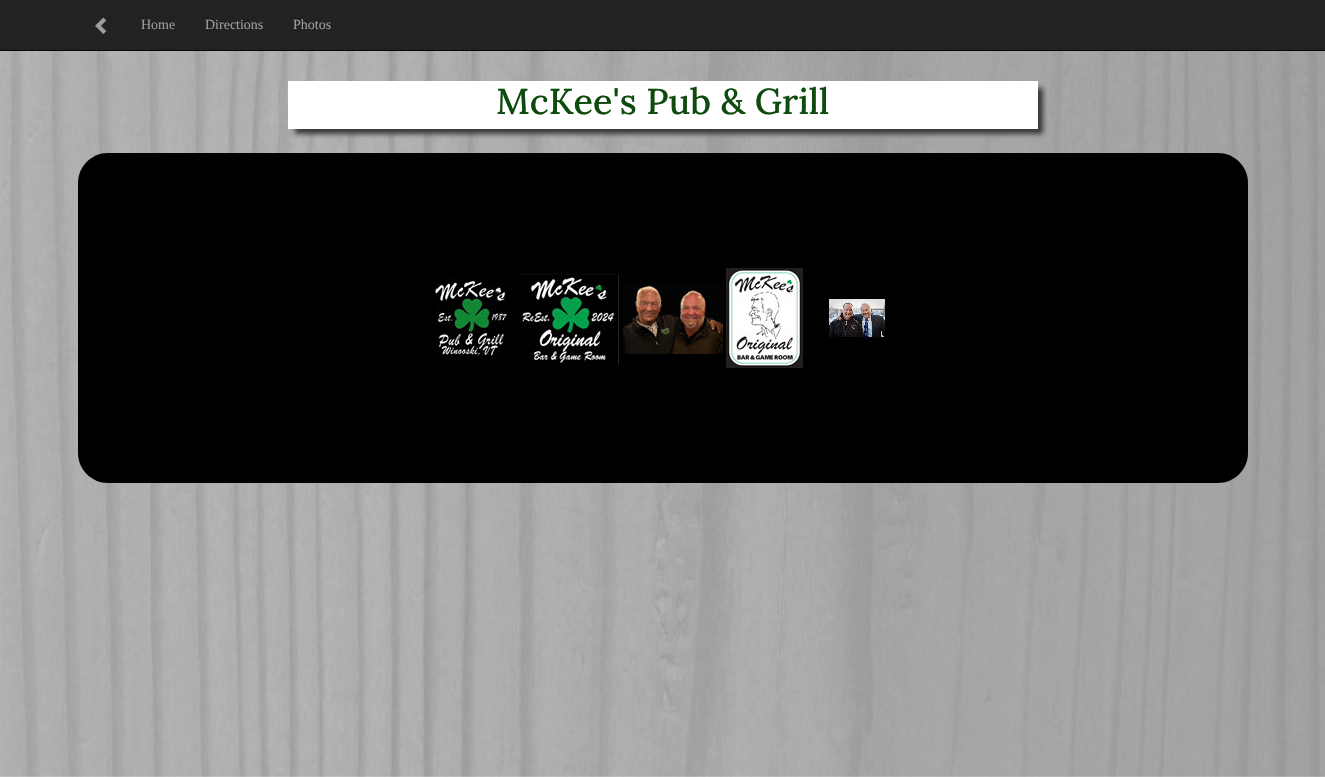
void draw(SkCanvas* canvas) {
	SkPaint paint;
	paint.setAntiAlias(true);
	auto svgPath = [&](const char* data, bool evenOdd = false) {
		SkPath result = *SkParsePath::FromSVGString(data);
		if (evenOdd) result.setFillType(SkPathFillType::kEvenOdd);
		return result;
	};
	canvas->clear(0xffffffff);
	canvas->drawImageRect(SkImages::DeferredFromEncodedData(SkData::MakeFromFileName("img1.png")), SkRect::MakeXYWH(0, 51, 1325, 726), SkSamplingOptions());
	paint.setColor(0xff222222);
	canvas->drawRect(SkRect::MakeXYWH(0, 0, 1325, 50), paint);
	paint.setColor(0xff080808);
	canvas->drawRect(SkRect::MakeXYWH(0, 50, 1325, 1), paint);
	canvas->drawImageRect(SkImages::DeferredFromEncodedData(SkData::MakeFromFileName("img2.png")), SkRect::MakeXYWH(95, 17, 12, 17), SkSamplingOptions());
	SkFont f1(fontMgr->matchFamilyStyle("Liberation Serif", SkFontStyle::Normal()), 14);
	f1.setSubpixel(true);
	paint.setColor(0xff9d9d9d);
	canvas->drawString("Home", 141, 29, f1, paint);
	canvas->drawString("Directions", 205, 29, f1, paint);
	canvas->drawString("Photos", 293, 29, f1, paint);
	paint.setColor(0xff383838);
	paint.setMaskFilter(SkMaskFilter::MakeBlur(kNormal_SkBlurStyle, 2.5));
	canvas->drawRect(SkRect::MakeXYWH(295, 88, 748, 46), paint);
	paint.setMaskFilter(nullptr);
	paint.setColor(0xffffffff);
	canvas->drawRect(SkRect::MakeXYWH(288, 81, 750, 48), paint);
	SkFont f2(fontMgr->matchFamilyStyle("Lora", SkFontStyle(500, SkFontStyle::kNormal_Width, SkFontStyle::kUpright_Slant)), 36);
	f2.setSubpixel(true);
	paint.setColor(0xff0e4b0e);
	canvas->drawString("McKee's Pub & Grill", 496, 114, f2, paint);
	paint.setColor(0xff000000);
	canvas->drawPath(svgPath("M108 153H1218C1234.5 153 1248 166.5 1248 183V263H78V183C78 166.5 91.5 153 108 153Z"), paint);
	canvas->drawRect(SkRect::MakeXYWH(78, 263, 1170, 110), paint);
	canvas->drawImageRect(SkImages::DeferredFromEncodedData(SkData::MakeFromFileName("img3.png")), SkRect::MakeXYWH(435, 276, 72, 80), SkSamplingOptions());
	canvas->drawImageRect(SkImages::DeferredFromEncodedData(SkData::MakeFromFileName("img4.png")), SkRect::MakeXYWH(519, 272, 100, 93), SkSamplingOptions());
	canvas->drawImageRect(SkImages::DeferredFromEncodedData(SkData::MakeFromFileName("img5.png")), SkRect::MakeXYWH(623, 282, 100, 72), SkSamplingOptions());
	canvas->drawImageRect(SkImages::DeferredFromEncodedData(SkData::MakeFromFileName("img6.png")), SkRect::MakeXYWH(726, 268, 77, 100), SkSamplingOptions());
	canvas->drawImageRect(SkImages::DeferredFromEncodedData(SkData::MakeFromFileName("img7.png")), SkRect::MakeXYWH(823, 293, 64, 47), SkSamplingOptions());
	canvas->drawPath(svgPath("M78 373H1248V453C1248 469.5 1234.5 483 1218 483H108C91.5 483 78 469.5 78 453Z"), paint);
}
